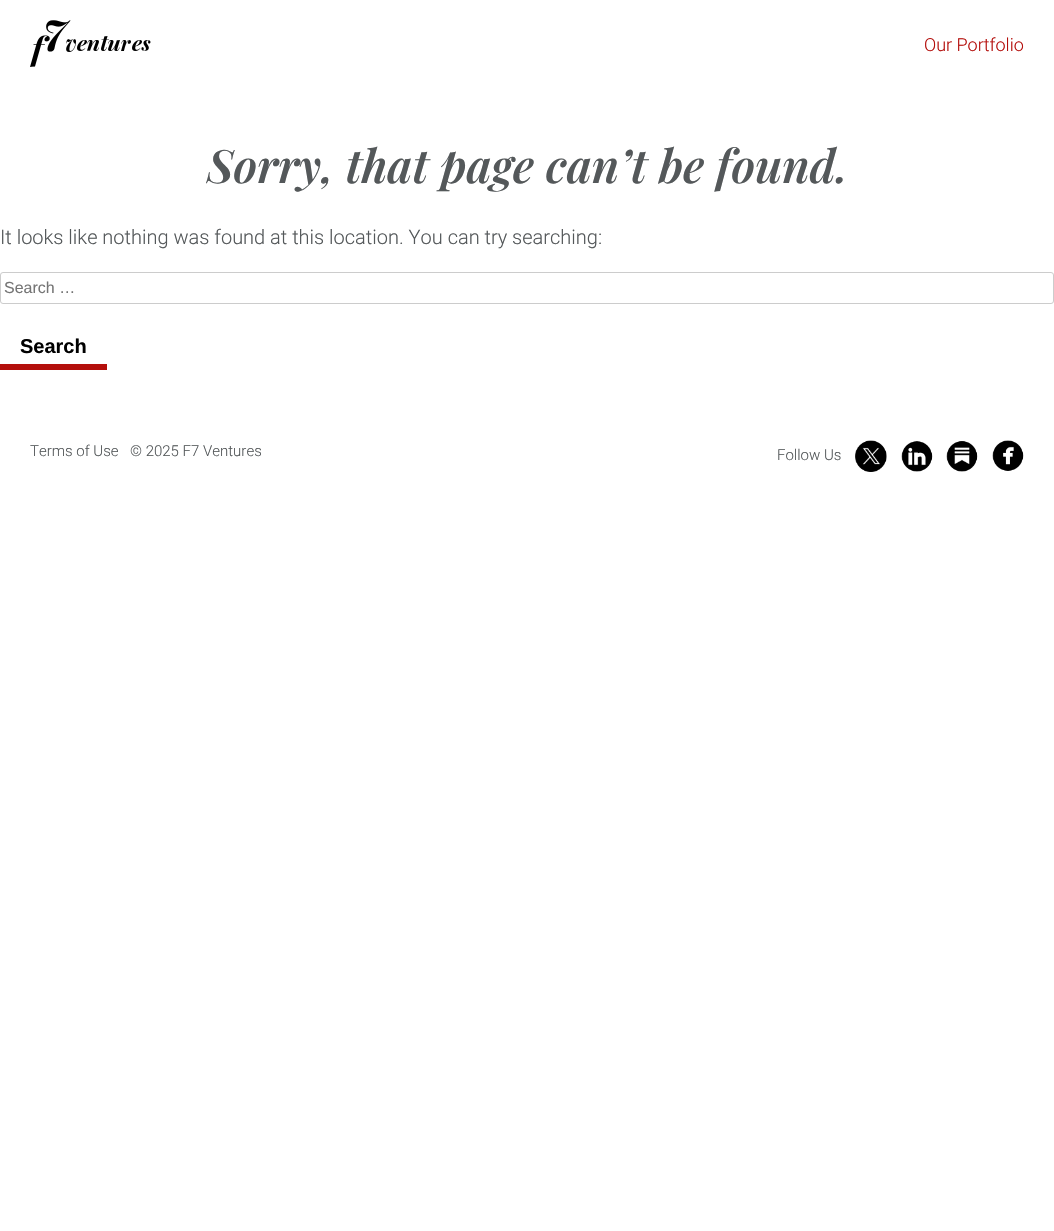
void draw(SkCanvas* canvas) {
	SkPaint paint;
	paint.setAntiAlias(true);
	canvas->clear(0xffffffff);
	canvas->drawImageRect(SkImages::DeferredFromEncodedData(SkData::MakeFromFileName("img1.png")), SkRect::MakeXYWH(30, 20, 121, 47), SkSamplingOptions());
	SkFont f1(fontMgr->matchFamilyStyle("Roboto", SkFontStyle(300, SkFontStyle::kNormal_Width, SkFontStyle::kUpright_Slant)), 18);
	f1.setSubpixel(true);
	paint.setColor(0xffb40f0c);
	canvas->drawString("Our Portfolio", 924, 51, f1, paint);
	SkFont f2(fontMgr->matchFamilyStyle("Playfair Display", SkFontStyle(600, SkFontStyle::kNormal_Width, SkFontStyle::kItalic_Slant)), 46);
	f2.setSubpixel(true);
	paint.setColor(0xff54585a);
	canvas->drawString("Sorry, that page can’t be found.", 207, 183, f2, paint);
	SkFont f3(fontMgr->matchFamilyStyle("Roboto", SkFontStyle(300, SkFontStyle::kNormal_Width, SkFontStyle::kUpright_Slant)), 20);
	f3.setSubpixel(true);
	canvas->drawString("It looks like nothing was found at this location. You can try searching:", 0, 244, f3, paint);
	paint.setStroke(true);
	paint.setStrokeWidth(1);
	paint.setColor(0xffcccccc);
	canvas->drawRoundRect(SkRect::MakeXYWH(0.5, 272.5, 1053, 31), 2.5, 2.5, paint);
	SkFont f4(fontMgr->matchFamilyStyle("Liberation Sans", SkFontStyle::Normal()), 16);
	f4.setSubpixel(true);
	paint.setStroke(false);
	paint.setColor(0xff757575);
	canvas->drawString("Search …", 4, 293, f4, paint);
	paint.setColor(0xffb40f0c);
	canvas->drawRect(SkRect::MakeXYWH(0, 364, 107, 6), paint);
	SkFont f5(fontMgr->matchFamilyStyle("Liberation Sans", SkFontStyle::Bold()), 20);
	f5.setSubpixel(true);
	paint.setColor(0xff000000);
	canvas->drawString("Search", 20, 353, f5, paint);
	SkFont f6(fontMgr->matchFamilyStyle("Roboto", SkFontStyle(300, SkFontStyle::kNormal_Width, SkFontStyle::kUpright_Slant)), 15);
	f6.setSubpixel(true);
	paint.setColor(0xff54585a);
	canvas->drawString("Terms of Use", 30, 456, f6, paint);
	canvas->drawString("© 2025 F7 Ventures", 130, 456, f6, paint);
	canvas->drawString("Follow Us", 777, 460, f6, paint);
	canvas->drawImageRect(SkImages::DeferredFromEncodedData(SkData::MakeFromFileName("img2.png")), SkRect::MakeXYWH(855, 440, 32, 32), SkSamplingOptions());
	canvas->drawImageRect(SkImages::DeferredFromEncodedData(SkData::MakeFromFileName("img3.png")), SkRect::MakeXYWH(901, 441, 32, 31), SkSamplingOptions());
	canvas->drawImageRect(SkImages::DeferredFromEncodedData(SkData::MakeFromFileName("img4.png")), SkRect::MakeXYWH(946, 441, 32, 31), SkSamplingOptions());
	canvas->drawImageRect(SkImages::DeferredFromEncodedData(SkData::MakeFromFileName("img5.png")), SkRect::MakeXYWH(992, 440, 32, 31), SkSamplingOptions());
}
